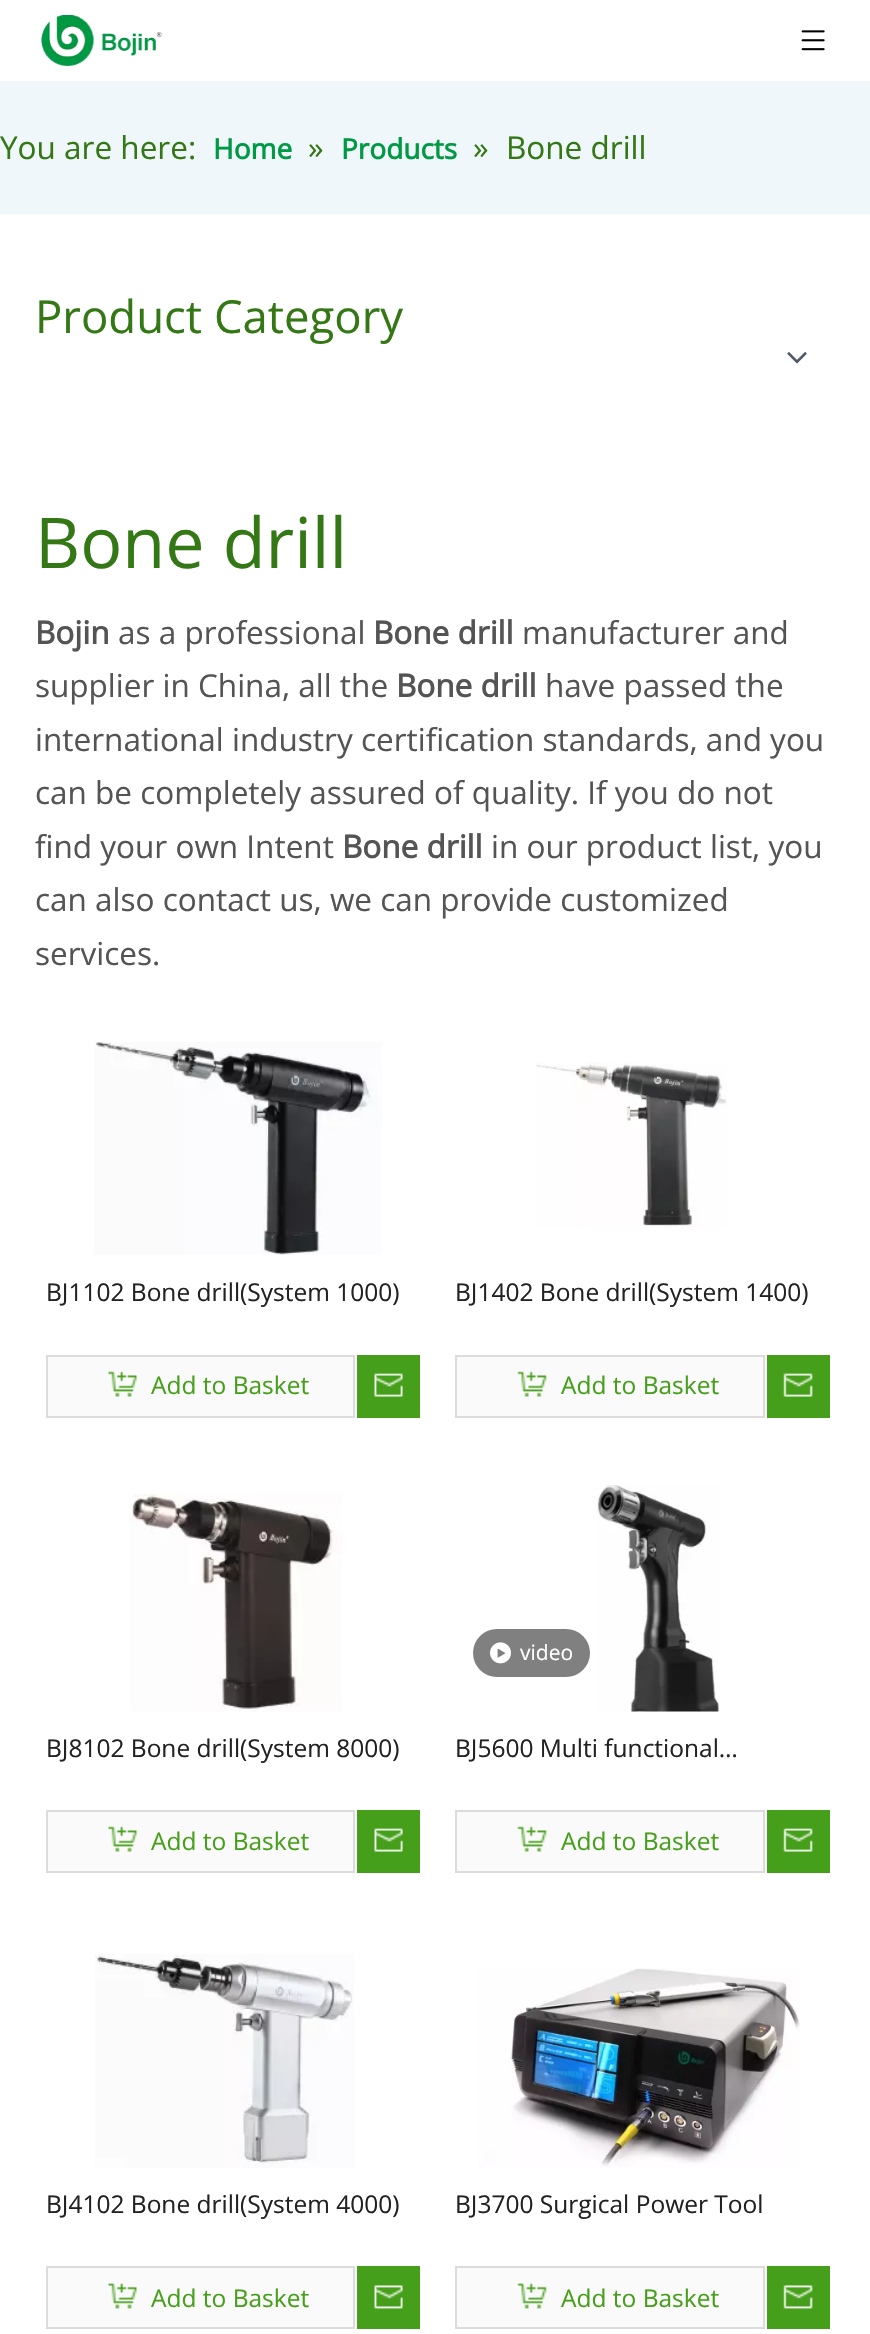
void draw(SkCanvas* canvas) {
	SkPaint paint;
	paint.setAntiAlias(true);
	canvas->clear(0xffffffff);
	canvas->drawImageRect(SkImages::DeferredFromEncodedData(SkData::MakeFromFileName("img1.png")), SkRect::MakeXYWH(41, 15, 121, 51), SkSamplingOptions());
	canvas->drawImageRect(SkImages::DeferredFromEncodedData(SkData::MakeFromFileName("img2.png")), SkRect::MakeXYWH(801, 30, 24, 21), SkSamplingOptions());
	paint.setColor(0xfff0f7fa);
	canvas->drawRect(SkRect::MakeXYWH(0, 81, 870, 133), paint);
	SkFont f1(fontMgr->matchFamilyStyle("Open Sans", SkFontStyle::Normal()), 31.5);
	f1.setSubpixel(true);
	paint.setColor(0xff347816);
	canvas->drawString("You are here:", 0, 159, f1, paint);
	SkFont f2(fontMgr->matchFamilyStyle("Open Sans", SkFontStyle::Bold()), 28);
	f2.setSubpixel(true);
	paint.setColor(0xff009944);
	canvas->drawString("Home", 213, 159, f2, paint);
	paint.setColor(0xff347816);
	canvas->drawString("»", 308, 159, f1, paint);
	paint.setColor(0xff009944);
	canvas->drawString("Products", 341, 159, f2, paint);
	paint.setColor(0xff347816);
	canvas->drawString("»", 473, 159, f1, paint);
	canvas->drawString("Bone drill", 506, 159, f1, paint);
	SkFont f3(fontMgr->matchFamilyStyle("Open Sans", SkFontStyle::Normal()), 45.5);
	f3.setSubpixel(true);
	canvas->drawString("Product Category", 35, 333, f3, paint);
	canvas->drawImageRect(SkImages::DeferredFromEncodedData(SkData::MakeFromFileName("img3.png")), SkRect::MakeXYWH(787, 352, 20, 12), SkSamplingOptions());
	SkFont f4(fontMgr->matchFamilyStyle("Open Sans", SkFontStyle::Normal()), 70);
	f4.setSubpixel(true);
	canvas->drawString("Bone drill", 35, 568, f4, paint);
	SkFont f5(fontMgr->matchFamilyStyle("Open Sans", SkFontStyle::Bold()), 31.5);
	f5.setSubpixel(true);
	paint.setColor(0xff545454);
	canvas->drawString("Bojin", 35, 644, f5, paint);
	canvas->drawString("as a professional", 118, 644, f1, paint);
	canvas->drawString("Bone drill", 373, 644, f5, paint);
	canvas->drawString("manufacturer and", 522, 644, f1, paint);
	canvas->drawString("supplier in China, all the", 35, 697, f1, paint);
	canvas->drawString("Bone drill", 396, 697, f5, paint);
	canvas->drawString("have passed the", 545, 697, f1, paint);
	canvas->drawString("international industry certification standards, and you", 35, 751, f1, paint);
	canvas->drawString("can be completely assured of quality. If you do not", 35, 804, f1, paint);
	canvas->drawString("find your own Intent", 35, 858, f1, paint);
	canvas->drawString("Bone drill", 342, 858, f5, paint);
	canvas->drawString("in our product list, you", 491, 858, f1, paint);
	canvas->drawString("can also contact us, we can provide customized", 35, 911, f1, paint);
	canvas->drawString("services.", 35, 965, f1, paint);
	canvas->drawImageRect(SkImages::DeferredFromEncodedData(SkData::MakeFromFileName("img4.png")), SkRect::MakeXYWH(94, 1042, 288, 213), SkSamplingOptions());
	SkFont f6(fontMgr->matchFamilyStyle("Open Sans", SkFontStyle::Normal()), 24.5);
	f6.setSubpixel(true);
	paint.setColor(0xff222222);
	canvas->drawString("BJ1102 Bone drill(System 1000)", 46, 1301, f6, paint);
	paint.setColor(0xfffafafa);
	canvas->drawRect(SkRect::MakeXYWH(47, 1356, 307, 61), paint);
	paint.setStroke(true);
	paint.setStrokeWidth(2);
	paint.setColor(0xffdcdcdc);
	canvas->drawRect(SkRect::MakeXYWH(47, 1356, 307, 61), paint);
	canvas->drawImageRect(SkImages::DeferredFromEncodedData(SkData::MakeFromFileName("img5.png")), SkRect::MakeXYWH(108, 1371, 29, 26), SkSamplingOptions());
	paint.setStroke(false);
	paint.setColor(0xff469f1a);
	canvas->drawString("Add to Basket", 151, 1394, f6, paint);
	canvas->drawRect(SkRect::MakeXYWH(357, 1355, 63, 63), paint);
	canvas->drawImageRect(SkImages::DeferredFromEncodedData(SkData::MakeFromFileName("img6.png")), SkRect::MakeXYWH(374, 1373, 29, 24), SkSamplingOptions());
	canvas->drawImageRect(SkImages::DeferredFromEncodedData(SkData::MakeFromFileName("img7.png")), SkRect::MakeXYWH(536, 1062, 191, 166), SkSamplingOptions());
	paint.setColor(0xff222222);
	canvas->drawString("BJ1402 Bone drill(System 1400)", 455, 1301, f6, paint);
	paint.setColor(0xfffafafa);
	canvas->drawRect(SkRect::MakeXYWH(456, 1356, 308, 61), paint);
	paint.setStroke(true);
	paint.setColor(0xffdcdcdc);
	canvas->drawRect(SkRect::MakeXYWH(456, 1356, 308, 61), paint);
	canvas->drawImageRect(SkImages::DeferredFromEncodedData(SkData::MakeFromFileName("img8.png")), SkRect::MakeXYWH(517, 1371, 30, 26), SkSamplingOptions());
	paint.setStroke(false);
	paint.setColor(0xff469f1a);
	canvas->drawString("Add to Basket", 561, 1394, f6, paint);
	canvas->drawRect(SkRect::MakeXYWH(767, 1355, 63, 63), paint);
	canvas->drawImageRect(SkImages::DeferredFromEncodedData(SkData::MakeFromFileName("img9.png")), SkRect::MakeXYWH(783, 1373, 30, 24), SkSamplingOptions());
	canvas->drawImageRect(SkImages::DeferredFromEncodedData(SkData::MakeFromFileName("img10.png")), SkRect::MakeXYWH(129, 1493, 213, 219), SkSamplingOptions());
	paint.setColor(0xff222222);
	canvas->drawString("BJ8102 Bone drill(System 8000)", 46, 1757, f6, paint);
	paint.setColor(0xfffafafa);
	canvas->drawRect(SkRect::MakeXYWH(47, 1811, 307, 61), paint);
	paint.setStroke(true);
	paint.setColor(0xffdcdcdc);
	canvas->drawRect(SkRect::MakeXYWH(47, 1811, 307, 61), paint);
	canvas->drawImageRect(SkImages::DeferredFromEncodedData(SkData::MakeFromFileName("img5.png")), SkRect::MakeXYWH(108, 1826, 29, 26), SkSamplingOptions());
	paint.setStroke(false);
	paint.setColor(0xff469f1a);
	canvas->drawString("Add to Basket", 151, 1850, f6, paint);
	canvas->drawRect(SkRect::MakeXYWH(357, 1810, 63, 63), paint);
	canvas->drawImageRect(SkImages::DeferredFromEncodedData(SkData::MakeFromFileName("img6.png")), SkRect::MakeXYWH(374, 1828, 29, 24), SkSamplingOptions());
	paint.setColor(0xff808080);
	canvas->drawRoundRect(SkRect::MakeXYWH(473, 1629, 117, 48), 24, 24, paint);
	canvas->drawImageRect(SkImages::DeferredFromEncodedData(SkData::MakeFromFileName("img11.png")), SkRect::MakeXYWH(490, 1642, 21, 22), SkSamplingOptions());
	SkFont f7(fontMgr->matchFamilyStyle("Open Sans", SkFontStyle::Normal()), 21);
	f7.setSubpixel(true);
	paint.setColor(0xffffffff);
	canvas->drawString("video", 520, 1660, f7, paint);
	canvas->drawImageRect(SkImages::DeferredFromEncodedData(SkData::MakeFromFileName("img12.png")), SkRect::MakeXYWH(597, 1485, 122, 227), SkSamplingOptions());
	paint.setColor(0xff222222);
	canvas->drawString("BJ5600 Multi functional…", 455, 1757, f6, paint);
	paint.setColor(0xfffafafa);
	canvas->drawRect(SkRect::MakeXYWH(456, 1811, 308, 61), paint);
	paint.setStroke(true);
	paint.setColor(0xffdcdcdc);
	canvas->drawRect(SkRect::MakeXYWH(456, 1811, 308, 61), paint);
	canvas->drawImageRect(SkImages::DeferredFromEncodedData(SkData::MakeFromFileName("img8.png")), SkRect::MakeXYWH(517, 1826, 30, 26), SkSamplingOptions());
	paint.setStroke(false);
	paint.setColor(0xff469f1a);
	canvas->drawString("Add to Basket", 561, 1850, f6, paint);
	canvas->drawRect(SkRect::MakeXYWH(767, 1810, 63, 63), paint);
	canvas->drawImageRect(SkImages::DeferredFromEncodedData(SkData::MakeFromFileName("img9.png")), SkRect::MakeXYWH(783, 1828, 30, 24), SkSamplingOptions());
	canvas->drawImageRect(SkImages::DeferredFromEncodedData(SkData::MakeFromFileName("img13.png")), SkRect::MakeXYWH(95, 1954, 259, 214), SkSamplingOptions());
	paint.setColor(0xff222222);
	canvas->drawString("BJ4102 Bone drill(System 4000)", 46, 2213, f6, paint);
	paint.setColor(0xfffafafa);
	canvas->drawRect(SkRect::MakeXYWH(47, 2267, 307, 61), paint);
	paint.setStroke(true);
	paint.setColor(0xffdcdcdc);
	canvas->drawRect(SkRect::MakeXYWH(47, 2267, 307, 61), paint);
	canvas->drawImageRect(SkImages::DeferredFromEncodedData(SkData::MakeFromFileName("img14.png")), SkRect::MakeXYWH(108, 2283, 29, 26), SkSamplingOptions());
	paint.setStroke(false);
	paint.setColor(0xff469f1a);
	canvas->drawString("Add to Basket", 151, 2307, f6, paint);
	canvas->drawRect(SkRect::MakeXYWH(357, 2266, 63, 63), paint);
	canvas->drawImageRect(SkImages::DeferredFromEncodedData(SkData::MakeFromFileName("img15.png")), SkRect::MakeXYWH(374, 2285, 29, 24), SkSamplingOptions());
	canvas->drawImageRect(SkImages::DeferredFromEncodedData(SkData::MakeFromFileName("img16.png")), SkRect::MakeXYWH(478, 1968, 322, 200), SkSamplingOptions());
	paint.setColor(0xff222222);
	canvas->drawString("BJ3700 Surgical Power Tool", 455, 2213, f6, paint);
	paint.setColor(0xfffafafa);
	canvas->drawRect(SkRect::MakeXYWH(456, 2267, 308, 61), paint);
	paint.setStroke(true);
	paint.setColor(0xffdcdcdc);
	canvas->drawRect(SkRect::MakeXYWH(456, 2267, 308, 61), paint);
	canvas->drawImageRect(SkImages::DeferredFromEncodedData(SkData::MakeFromFileName("img17.png")), SkRect::MakeXYWH(517, 2283, 30, 26), SkSamplingOptions());
	paint.setStroke(false);
	paint.setColor(0xff469f1a);
	canvas->drawString("Add to Basket", 561, 2307, f6, paint);
	canvas->drawRect(SkRect::MakeXYWH(767, 2266, 63, 63), paint);
	canvas->drawImageRect(SkImages::DeferredFromEncodedData(SkData::MakeFromFileName("img18.png")), SkRect::MakeXYWH(783, 2285, 30, 24), SkSamplingOptions());
}
